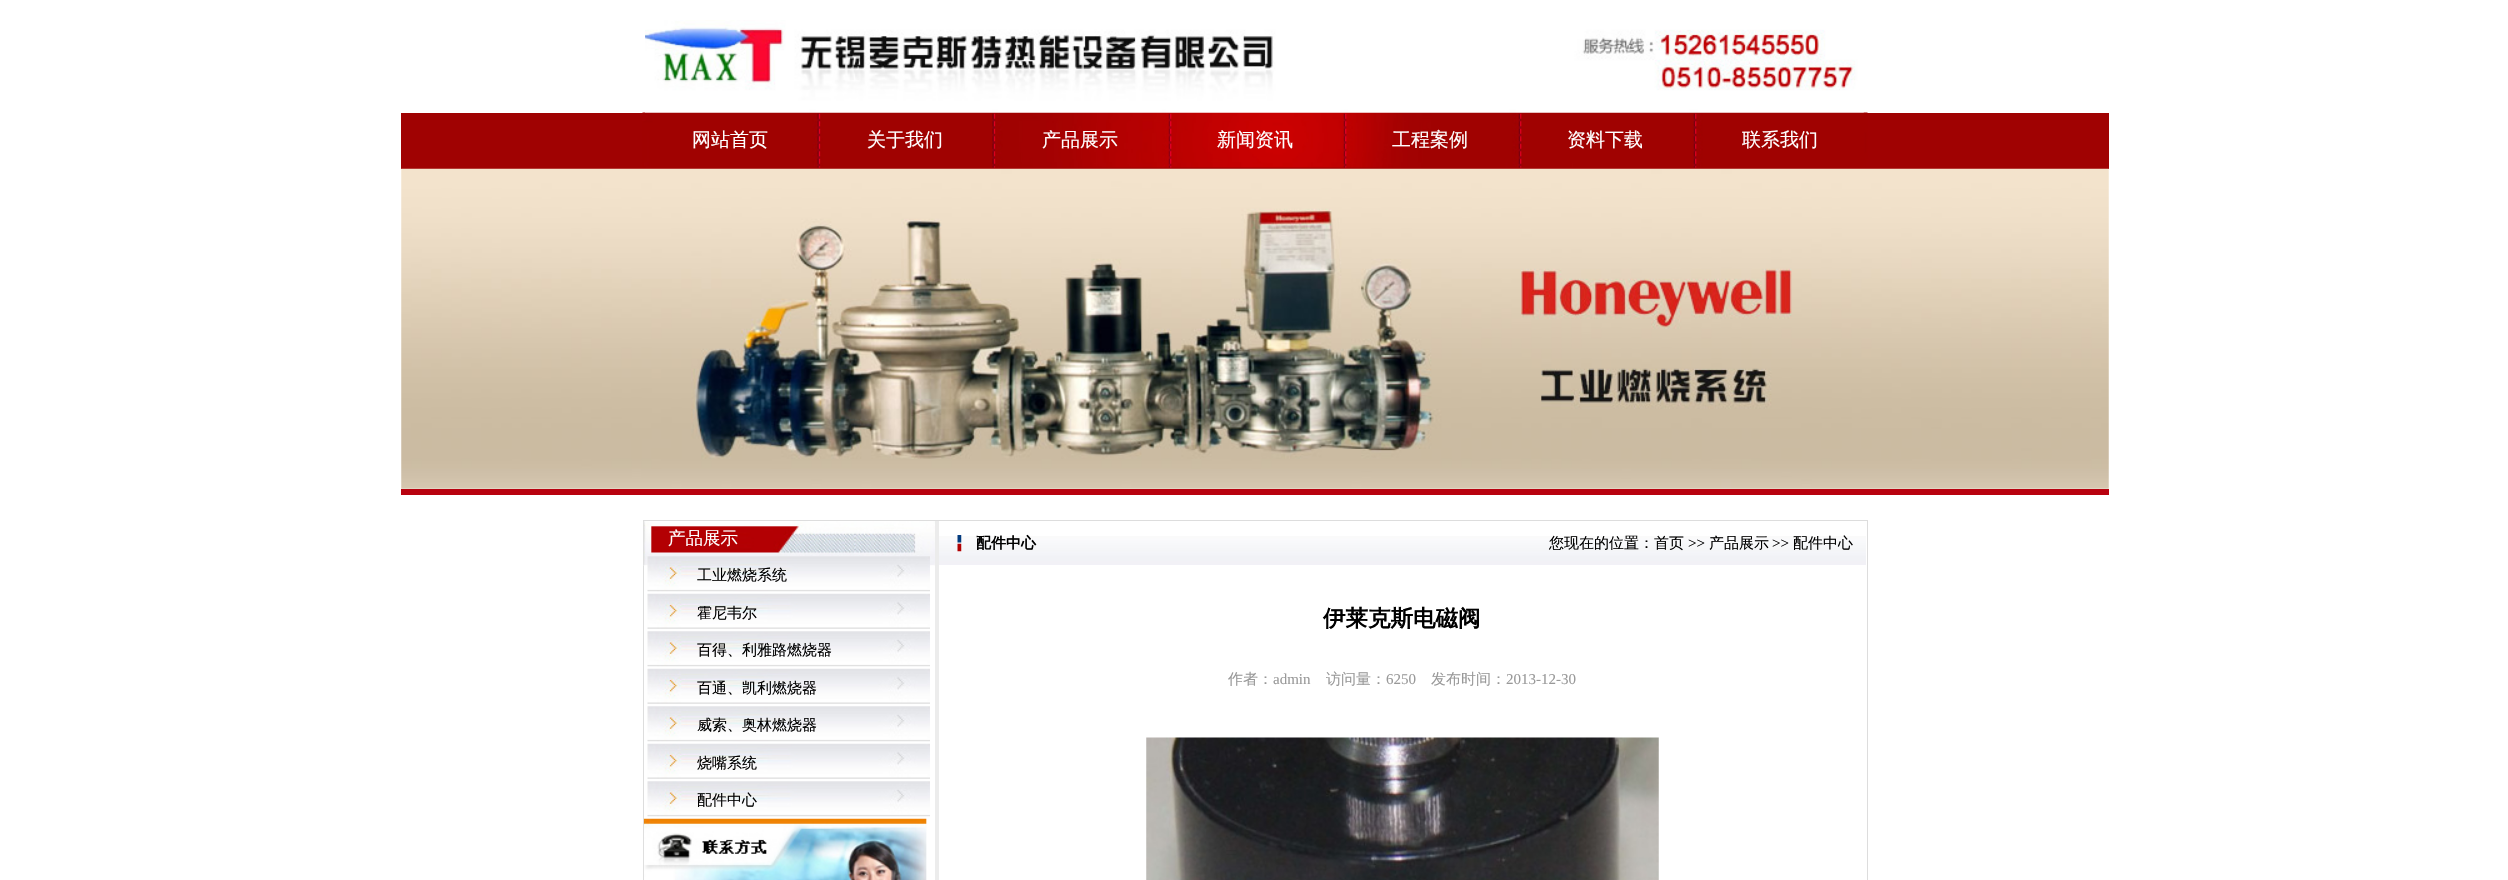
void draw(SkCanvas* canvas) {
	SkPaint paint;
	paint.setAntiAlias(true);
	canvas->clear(0xffffffff);
	paint.setColor(0xffa00202);
	canvas->drawRect(SkRect::MakeXYWH(401, 113, 1708, 56), paint);
	canvas->drawImageRect(SkImages::DeferredFromEncodedData(SkData::MakeFromFileName("img2.png")), SkRect::MakeXYWH(642, 112, 1226, 56), SkSamplingOptions());
	canvas->drawImageRect(SkImages::DeferredFromEncodedData(SkData::MakeFromFileName("img1.png")), SkRect::MakeXYWH(645, 20, 1219, 93), SkSamplingOptions());
	SkFont f1(fontMgr->matchFamilyStyle("WenQuanYi Zen Hei", SkFontStyle(500, SkFontStyle::kNormal_Width, SkFontStyle::kUpright_Slant)), 19);
	f1.setSubpixel(true);
	paint.setColor(0xffffffff);
	canvas->drawString("网站首页", 692, 146, f1, paint);
	canvas->drawString("关于我们", 867, 146, f1, paint);
	canvas->drawString("产品展示", 1042, 146, f1, paint);
	canvas->drawString("新闻资讯", 1217, 146, f1, paint);
	canvas->drawString("工程案例", 1392, 146, f1, paint);
	canvas->drawString("资料下载", 1567, 146, f1, paint);
	canvas->drawString("联系我们", 1742, 146, f1, paint);
	paint.setColor(0xffb8020f);
	canvas->drawRect(SkRect::MakeXYWH(401, 489, 1708, 6), paint);
	canvas->drawImageRect(SkImages::DeferredFromEncodedData(SkData::MakeFromFileName("img3.png")), SkRect::MakeXYWH(401, 168, 1708, 321), SkSamplingOptions());
	paint.setColor(0xffececec);
	canvas->drawRect(SkRect::MakeXYWH(935, 520, 4, 360), paint);
	paint.setStroke(true);
	paint.setStrokeWidth(1);
	paint.setColor(0xffdddddd);
	canvas->drawRect(SkRect::MakeXYWH(643.5, 520.5, 1224, 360), paint);
	canvas->drawImageRect(SkImages::DeferredFromEncodedData(SkData::MakeFromFileName("img4.png")), SkRect::MakeXYWH(643, 521, 292, 45), SkSamplingOptions());
	SkFont f2(fontMgr->matchFamilyStyle("WenQuanYi Zen Hei", SkFontStyle(500, SkFontStyle::kNormal_Width, SkFontStyle::kUpright_Slant)), 17.5);
	f2.setSubpixel(true);
	paint.setStroke(false);
	paint.setColor(0xffffffff);
	canvas->drawString("产品展示", 668, 544, f2, paint);
	canvas->drawImageRect(SkImages::DeferredFromEncodedData(SkData::MakeFromFileName("img5.png")), SkRect::MakeXYWH(647, 556, 283, 36), SkSamplingOptions());
	SkFont f3(fontMgr->matchFamilyStyle("WenQuanYi Zen Hei", SkFontStyle(500, SkFontStyle::kNormal_Width, SkFontStyle::kUpright_Slant)), 15);
	f3.setSubpixel(true);
	paint.setColor(0xff000000);
	canvas->drawString("工业燃烧系统", 697, 580, f3, paint);
	canvas->drawImageRect(SkImages::DeferredFromEncodedData(SkData::MakeFromFileName("img6.png")), SkRect::MakeXYWH(647, 593, 283, 36), SkSamplingOptions());
	canvas->drawString("霍尼韦尔", 697, 618, f3, paint);
	canvas->drawImageRect(SkImages::DeferredFromEncodedData(SkData::MakeFromFileName("img7.png")), SkRect::MakeXYWH(647, 631, 283, 36), SkSamplingOptions());
	canvas->drawString("百得、利雅路燃烧器", 697, 655, f3, paint);
	canvas->drawImageRect(SkImages::DeferredFromEncodedData(SkData::MakeFromFileName("img6.png")), SkRect::MakeXYWH(647, 668, 283, 36), SkSamplingOptions());
	canvas->drawString("百通、凯利燃烧器", 697, 693, f3, paint);
	canvas->drawImageRect(SkImages::DeferredFromEncodedData(SkData::MakeFromFileName("img7.png")), SkRect::MakeXYWH(647, 706, 283, 36), SkSamplingOptions());
	canvas->drawString("威索、奥林燃烧器", 697, 730, f3, paint);
	canvas->drawImageRect(SkImages::DeferredFromEncodedData(SkData::MakeFromFileName("img6.png")), SkRect::MakeXYWH(647, 743, 283, 36), SkSamplingOptions());
	canvas->drawString("烧嘴系统", 697, 768, f3, paint);
	canvas->drawImageRect(SkImages::DeferredFromEncodedData(SkData::MakeFromFileName("img8.png")), SkRect::MakeXYWH(647, 781, 283, 36), SkSamplingOptions());
	canvas->drawString("配件中心", 697, 805, f3, paint);
	canvas->drawImageRect(SkImages::DeferredFromEncodedData(SkData::MakeFromFileName("img9.png")), SkRect::MakeXYWH(643, 818, 284, 62), SkSamplingOptions());
	canvas->drawImageRect(SkImages::DeferredFromEncodedData(SkData::MakeFromFileName("img10.png")), SkRect::MakeXYWH(939, 536, 927, 29), SkSamplingOptions());
	canvas->drawImageRect(SkImages::DeferredFromEncodedData(SkData::MakeFromFileName("img11.png")), SkRect::MakeXYWH(957, 535, 5, 17), SkSamplingOptions());
	SkFont f4(fontMgr->matchFamilyStyle("WenQuanYi Zen Hei", SkFontStyle::Bold()), 15);
	f4.setSubpixel(true);
	canvas->drawString("配件中心", 976, 548, f4, paint);
	canvas->drawString("您现在的位置：首页", 1549, 548, f3, paint);
	SkFont f5(fontMgr->matchFamilyStyle("Liberation Serif", SkFontStyle::Normal()), 15);
	f5.setSubpixel(true);
	canvas->drawString(">>", 1688, 548, f5, paint);
	canvas->drawString("产品展示", 1709, 548, f3, paint);
	canvas->drawString(">>", 1772, 548, f5, paint);
	canvas->drawString("配件中心", 1793, 548, f3, paint);
	SkFont f6(fontMgr->matchFamilyStyle("WenQuanYi Zen Hei", SkFontStyle::Bold()), 22.5);
	f6.setSubpixel(true);
	canvas->drawString("伊莱克斯电磁阀", 1323, 626, f6, paint);
	paint.setColor(0xff999999);
	canvas->drawString("作者：", 1228, 684, f3, paint);
	canvas->drawString("admin", 1273, 684, f5, paint);
	canvas->drawString("访问量：", 1326, 684, f3, paint);
	canvas->drawString("6250", 1386, 684, f5, paint);
	canvas->drawString("发布时间：", 1431, 684, f3, paint);
	canvas->drawString("2013-12-30", 1506, 684, f5, paint);
	canvas->drawImageRect(SkImages::DeferredFromEncodedData(SkData::MakeFromFileName("img12.png")), SkRect::MakeXYWH(1146, 737, 513, 143), SkSamplingOptions());
}
